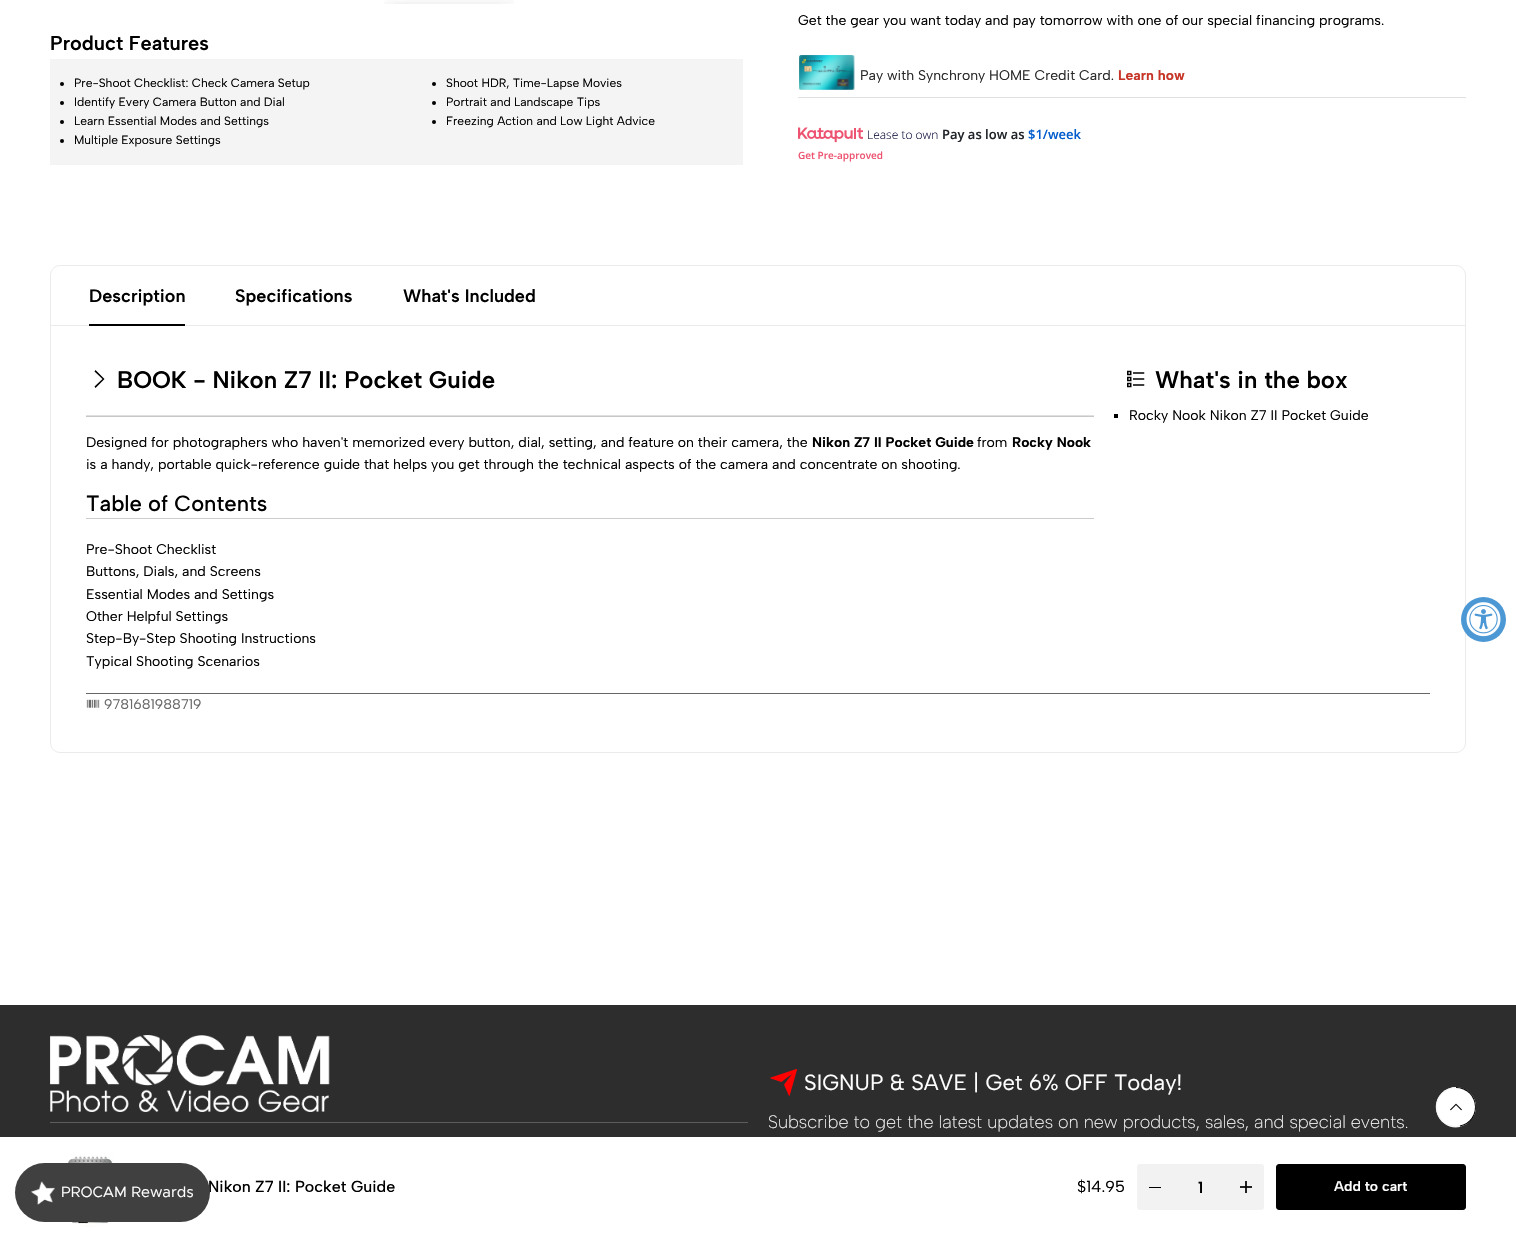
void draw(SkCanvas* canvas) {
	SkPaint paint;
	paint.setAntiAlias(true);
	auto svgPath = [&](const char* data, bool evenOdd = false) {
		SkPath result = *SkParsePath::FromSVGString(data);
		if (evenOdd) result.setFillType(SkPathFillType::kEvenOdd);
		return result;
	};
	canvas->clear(0xffffffff);
	canvas->drawImageRect(SkImages::DeferredFromEncodedData(SkData::MakeFromFileName("img1.png")), SkRect::MakeXYWH(384, 0, 130, 4), SkSamplingOptions());
	SkFont f1(fontMgr->matchFamilyStyle("Albert Sans", SkFontStyle(600, SkFontStyle::kNormal_Width, SkFontStyle::kUpright_Slant)), 20);
	f1.setSubpixel(true);
	paint.setColor(0xff000000);
	canvas->drawString("Product Features", 50, 50, f1, paint);
	paint.setColor(0xfff4f4f4);
	canvas->drawRect(SkRect::MakeXYWH(50, 59, 693, 106), paint);
	paint.setColor(0xff000000);
	canvas->drawCircle(62, 84, 2, paint);
	SkFont f2(fontMgr->matchFamilyStyle("Albert Sans", SkFontStyle::Normal()), 12);
	f2.setSubpixel(true);
	canvas->drawString("Pre-Shoot Checklist: Check Camera Setup", 74, 87, f2, paint);
	canvas->drawCircle(434, 84, 2, paint);
	canvas->drawString("Shoot HDR, Time-Lapse Movies", 446, 87, f2, paint);
	canvas->drawCircle(62, 103, 2, paint);
	canvas->drawString("Identify Every Camera Button and Dial", 74, 106, f2, paint);
	canvas->drawCircle(434, 103, 2, paint);
	canvas->drawString("Portrait and Landscape Tips", 446, 106, f2, paint);
	canvas->drawCircle(62, 122, 2, paint);
	canvas->drawString("Learn Essential Modes and Settings", 74, 125, f2, paint);
	canvas->drawCircle(434, 122, 2, paint);
	canvas->drawString("Freezing Action and Low Light Advice", 446, 125, f2, paint);
	canvas->drawCircle(62, 141, 2, paint);
	canvas->drawString("Multiple Exposure Settings", 74, 144, f2, paint);
	SkFont f3(fontMgr->matchFamilyStyle("Albert Sans", SkFontStyle::Normal()), 14);
	f3.setSubpixel(true);
	canvas->drawString("Get the gear you want today and pay tomorrow with one of our special financing programs.", 798, 25, f3, paint);
	canvas->drawImageRect(SkImages::DeferredFromEncodedData(SkData::MakeFromFileName("img2.png")), SkRect::MakeXYWH(799, 55, 56, 35), SkSamplingOptions());
	paint.setColor(0xff282828);
	canvas->drawString("Pay with Synchrony HOME Credit Card.", 860, 80, f3, paint);
	SkFont f4(fontMgr->matchFamilyStyle("Albert Sans", SkFontStyle::Bold()), 14);
	f4.setSubpixel(true);
	paint.setColor(0xffc63527);
	canvas->drawString("Learn how", 1118, 80, f4, paint);
	paint.setColor(0xffe0e0e0);
	canvas->drawRect(SkRect::MakeXYWH(798, 97, 668, 1), paint);
	canvas->drawImageRect(SkImages::DeferredFromEncodedData(SkData::MakeFromFileName("img3.png")), SkRect::MakeXYWH(798, 127, 65, 16), SkSamplingOptions());
	SkFont f5(fontMgr->matchFamilyStyle("Open Sans", SkFontStyle(300, SkFontStyle::kNormal_Width, SkFontStyle::kUpright_Slant)), 12);
	f5.setSubpixel(true);
	paint.setColor(0xff131340);
	canvas->drawString("Lease to own", 867, 139, f5, paint);
	SkFont f6(fontMgr->matchFamilyStyle("Open Sans", SkFontStyle(600, SkFontStyle::kNormal_Width, SkFontStyle::kUpright_Slant)), 13);
	f6.setSubpixel(true);
	paint.setColor(0xff212529);
	canvas->drawString("Pay as low as", 942, 139, f6, paint);
	paint.setColor(0xff005ccc);
	canvas->drawString("$1/week", 1028, 139, f6, paint);
	SkFont f7(fontMgr->matchFamilyStyle("Open Sans", SkFontStyle(600, SkFontStyle::kNormal_Width, SkFontStyle::kUpright_Slant)), 10);
	f7.setSubpixel(true);
	paint.setColor(0xffed5370);
	canvas->drawString("Get Pre-approved", 798, 159, f7, paint);
	canvas->drawImageRect(SkImages::DeferredFromEncodedData(SkData::MakeFromFileName("img4.png")), SkRect::MakeXYWH(67, 1155, 47, 72), SkSamplingOptions());
	SkFont f8(fontMgr->matchFamilyStyle("Albert Sans", SkFontStyle(500, SkFontStyle::kNormal_Width, SkFontStyle::kUpright_Slant)), 16);
	f8.setSubpixel(true);
	paint.setColor(0xff000000);
	canvas->drawString("Nikon Z7 II: Pocket Guide", 208, 1192, f8, paint);
	SkFont f9(fontMgr->matchFamilyStyle("Albert Sans", SkFontStyle::Normal()), 16);
	f9.setSubpixel(true);
	canvas->drawString("$14.95", 1077, 1192, f9, paint);
	paint.setColor(0xfff2f2f2);
	canvas->drawRoundRect(SkRect::MakeXYWH(1137, 1164, 127, 46), 3, 3, paint);
	paint.setColor(0xff000000);
	canvas->drawRect(SkRect::MakeXYWH(1149, 1187, 12, 1), paint);
	SkFont f10(fontMgr->matchFamilyStyle("Albert Sans", SkFontStyle(600, SkFontStyle::kNormal_Width, SkFontStyle::kUpright_Slant)), 16);
	f10.setSubpixel(true);
	canvas->drawString("1", 1198, 1193, f10, paint);
	canvas->drawImageRect(SkImages::DeferredFromEncodedData(SkData::MakeFromFileName("img5.png")), SkRect::MakeXYWH(1240, 1181, 12, 12), SkSamplingOptions());
	canvas->drawRoundRect(SkRect::MakeXYWH(1276.5, 1164.5, 189, 45), 2.5, 2.5, paint);
	paint.setStroke(true);
	paint.setStrokeWidth(1);
	canvas->drawRoundRect(SkRect::MakeXYWH(1276.5, 1164.5, 189, 45), 2.5, 2.5, paint);
	SkFont f11(fontMgr->matchFamilyStyle("Albert Sans", SkFontStyle(600, SkFontStyle::kNormal_Width, SkFontStyle::kUpright_Slant)), 14);
	f11.setSubpixel(true);
	paint.setStroke(false);
	paint.setColor(0xffffffff);
	canvas->drawString("Add to cart", 1334, 1191, f11, paint);
	paint.setStroke(true);
	paint.setColor(0xffebebeb);
	canvas->drawRoundRect(SkRect::MakeXYWH(50.5, 265.5, 1415, 487), 9.5, 9.5, paint);
	SkFont f12(fontMgr->matchFamilyStyle("Albert Sans", SkFontStyle(600, SkFontStyle::kNormal_Width, SkFontStyle::kUpright_Slant)), 18);
	f12.setSubpixel(true);
	paint.setStroke(false);
	paint.setColor(0xff000000);
	canvas->drawString("Description", 89, 302, f12, paint);
	paint.setColor(0xffebebeb);
	canvas->drawRect(SkRect::MakeXYWH(51, 325, 1414, 1), paint);
	paint.setColor(0xff000000);
	canvas->drawRect(SkRect::MakeXYWH(89, 324, 96, 2), paint);
	canvas->drawString("Specifications", 235, 302, f12, paint);
	canvas->drawString("What's Included", 403, 302, f12, paint);
	canvas->drawPath(svgPath("M95.5 370L94.5 371.5L102.5 379L94.5 386.5L95.5 388L104.5 379Z"), paint);
	SkFont f13(fontMgr->matchFamilyStyle("Albert Sans", SkFontStyle(600, SkFontStyle::kNormal_Width, SkFontStyle::kUpright_Slant)), 24);
	f13.setSubpixel(true);
	canvas->drawString("BOOK - Nikon Z7 II: Pocket Guide", 117, 388, f13, paint);
	paint.setColor(0xffe0e0e0);
	canvas->drawRect(SkRect::MakeXYWH(86, 415, 1008, 1), paint);
	paint.setColor(0xffc7c7c7);
	canvas->drawRect(SkRect::MakeXYWH(86, 416, 1008, 1), paint);
	paint.setColor(0xff000000);
	canvas->drawString("Designed for photographers who haven't memorized every button, dial, setting, and feature on their camera, the", 86, 447, f3, paint);
	canvas->drawString("Nikon Z7 II Pocket Guide", 812, 447, f4, paint);
	canvas->drawString("from", 977, 447, f3, paint);
	canvas->drawString("Rocky Nook", 1012, 447, f4, paint);
	canvas->drawString("is a handy, portable quick-reference guide that helps you get through the technical aspects of the camera and concentrate on shooting.", 86, 469, f3, paint);
	paint.setColor(0xffcccccc);
	canvas->drawRect(SkRect::MakeXYWH(86, 518, 1008, 1), paint);
	SkFont f14(fontMgr->matchFamilyStyle("Albert Sans", SkFontStyle(500, SkFontStyle::kNormal_Width, SkFontStyle::kUpright_Slant)), 22);
	f14.setSubpixel(true);
	paint.setColor(0xff000000);
	canvas->drawString("Table of Contents", 86, 511, f14, paint);
	canvas->drawString("Pre-Shoot Checklist", 86, 554, f3, paint);
	canvas->drawString("Buttons, Dials, and Screens", 86, 576, f3, paint);
	canvas->drawString("Essential Modes and Settings", 86, 599, f3, paint);
	canvas->drawString("Other Helpful Settings", 86, 621, f3, paint);
	canvas->drawString("Step-By-Step Shooting Instructions", 86, 643, f3, paint);
	canvas->drawString("Typical Shooting Scenarios", 86, 666, f3, paint);
	canvas->drawImageRect(SkImages::DeferredFromEncodedData(SkData::MakeFromFileName("img6.png")), SkRect::MakeXYWH(1127, 370, 18, 18), SkSamplingOptions());
	canvas->drawString("What's in the box", 1155, 388, f13, paint);
	canvas->drawRect(SkRect::MakeXYWH(1114, 414, 4, 4), paint);
	canvas->drawString("Rocky Nook Nikon Z7 II Pocket Guide", 1129, 420, f3, paint);
	paint.setColor(0xff666666);
	canvas->drawRect(SkRect::MakeXYWH(86, 693, 1344, 1), paint);
	canvas->drawImageRect(SkImages::DeferredFromEncodedData(SkData::MakeFromFileName("img7.png")), SkRect::MakeXYWH(86, 699, 14, 9), SkSamplingOptions());
	paint.setColor(0xff696969);
	canvas->drawString("9781681988719", 104, 709, f3, paint);
	paint.setColor(0xff4c98d5);
	canvas->drawCircle(1483.5, 619.5, 22.5, paint);
	canvas->drawImageRect(SkImages::DeferredFromEncodedData(SkData::MakeFromFileName("img8.png")), SkRect::MakeXYWH(1466, 602, 35, 35), SkSamplingOptions());
	paint.setColor(0xff2d2d2d);
	canvas->drawRect(SkRect::MakeXYWH(0, 1005, 1516, 132), paint);
	canvas->drawImageRect(SkImages::DeferredFromEncodedData(SkData::MakeFromFileName("img9.png")), SkRect::MakeXYWH(50, 1035, 280, 77), SkSamplingOptions());
	paint.setColor(0xff5d5d5d);
	canvas->drawRect(SkRect::MakeXYWH(50, 1122, 698, 1), paint);
	canvas->drawImageRect(SkImages::DeferredFromEncodedData(SkData::MakeFromFileName("img10.png")), SkRect::MakeXYWH(770, 1069, 27, 27), SkSamplingOptions());
	SkFont f15(fontMgr->matchFamilyStyle("Albert Sans", SkFontStyle::Normal()), 22);
	f15.setSubpixel(true);
	paint.setColor(0xffffffff);
	canvas->drawString("SIGNUP & SAVE | Get 6% OFF Today!", 804, 1090, f15, paint);
	SkFont f16(fontMgr->matchFamilyStyle("Albert Sans", SkFontStyle(200, SkFontStyle::kNormal_Width, SkFontStyle::kUpright_Slant)), 18);
	f16.setSubpixel(true);
	canvas->drawString("Subscribe to get the latest updates on new products, sales, and special events.", 768, 1128, f16, paint);
	canvas->drawCircle(1456, 1107, 20, paint);
	paint.setColor(0xff000000);
	canvas->drawPath(svgPath("M1456 1107V1087C1480 1087 1483.5 1122 1460 1126.5Z"), paint);
	paint.setColor(0xfff5f5f5);
	canvas->drawPath(svgPath("M1456 1107L1460 1127C1440 1131 1427 1105 1443 1092C1447 1089 1451 1087 1456 1087Z"), paint);
	paint.setColor(0xffffffff);
	canvas->drawCircle(1456, 1107, 19, paint);
	canvas->drawImageRect(SkImages::DeferredFromEncodedData(SkData::MakeFromFileName("img11.png")), SkRect::MakeXYWH(1450, 1103, 12, 8), SkSamplingOptions());
	paint.setColor(0xff404040);
	canvas->drawRoundRect(SkRect::MakeXYWH(15, 1163, 195, 59), 29.5, 29.5, paint);
	canvas->drawImageRect(SkImages::DeferredFromEncodedData(SkData::MakeFromFileName("img12.png")), SkRect::MakeXYWH(31, 1181, 24, 24), SkSamplingOptions());
	SkFont f17(fontMgr->matchFamilyStyle("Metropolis", SkFontStyle::Normal()), 15);
	f17.setSubpixel(true);
	paint.setColor(0xffffffff);
	canvas->drawString("PROCAM Rewards", 61, 1197, f17, paint);
}
